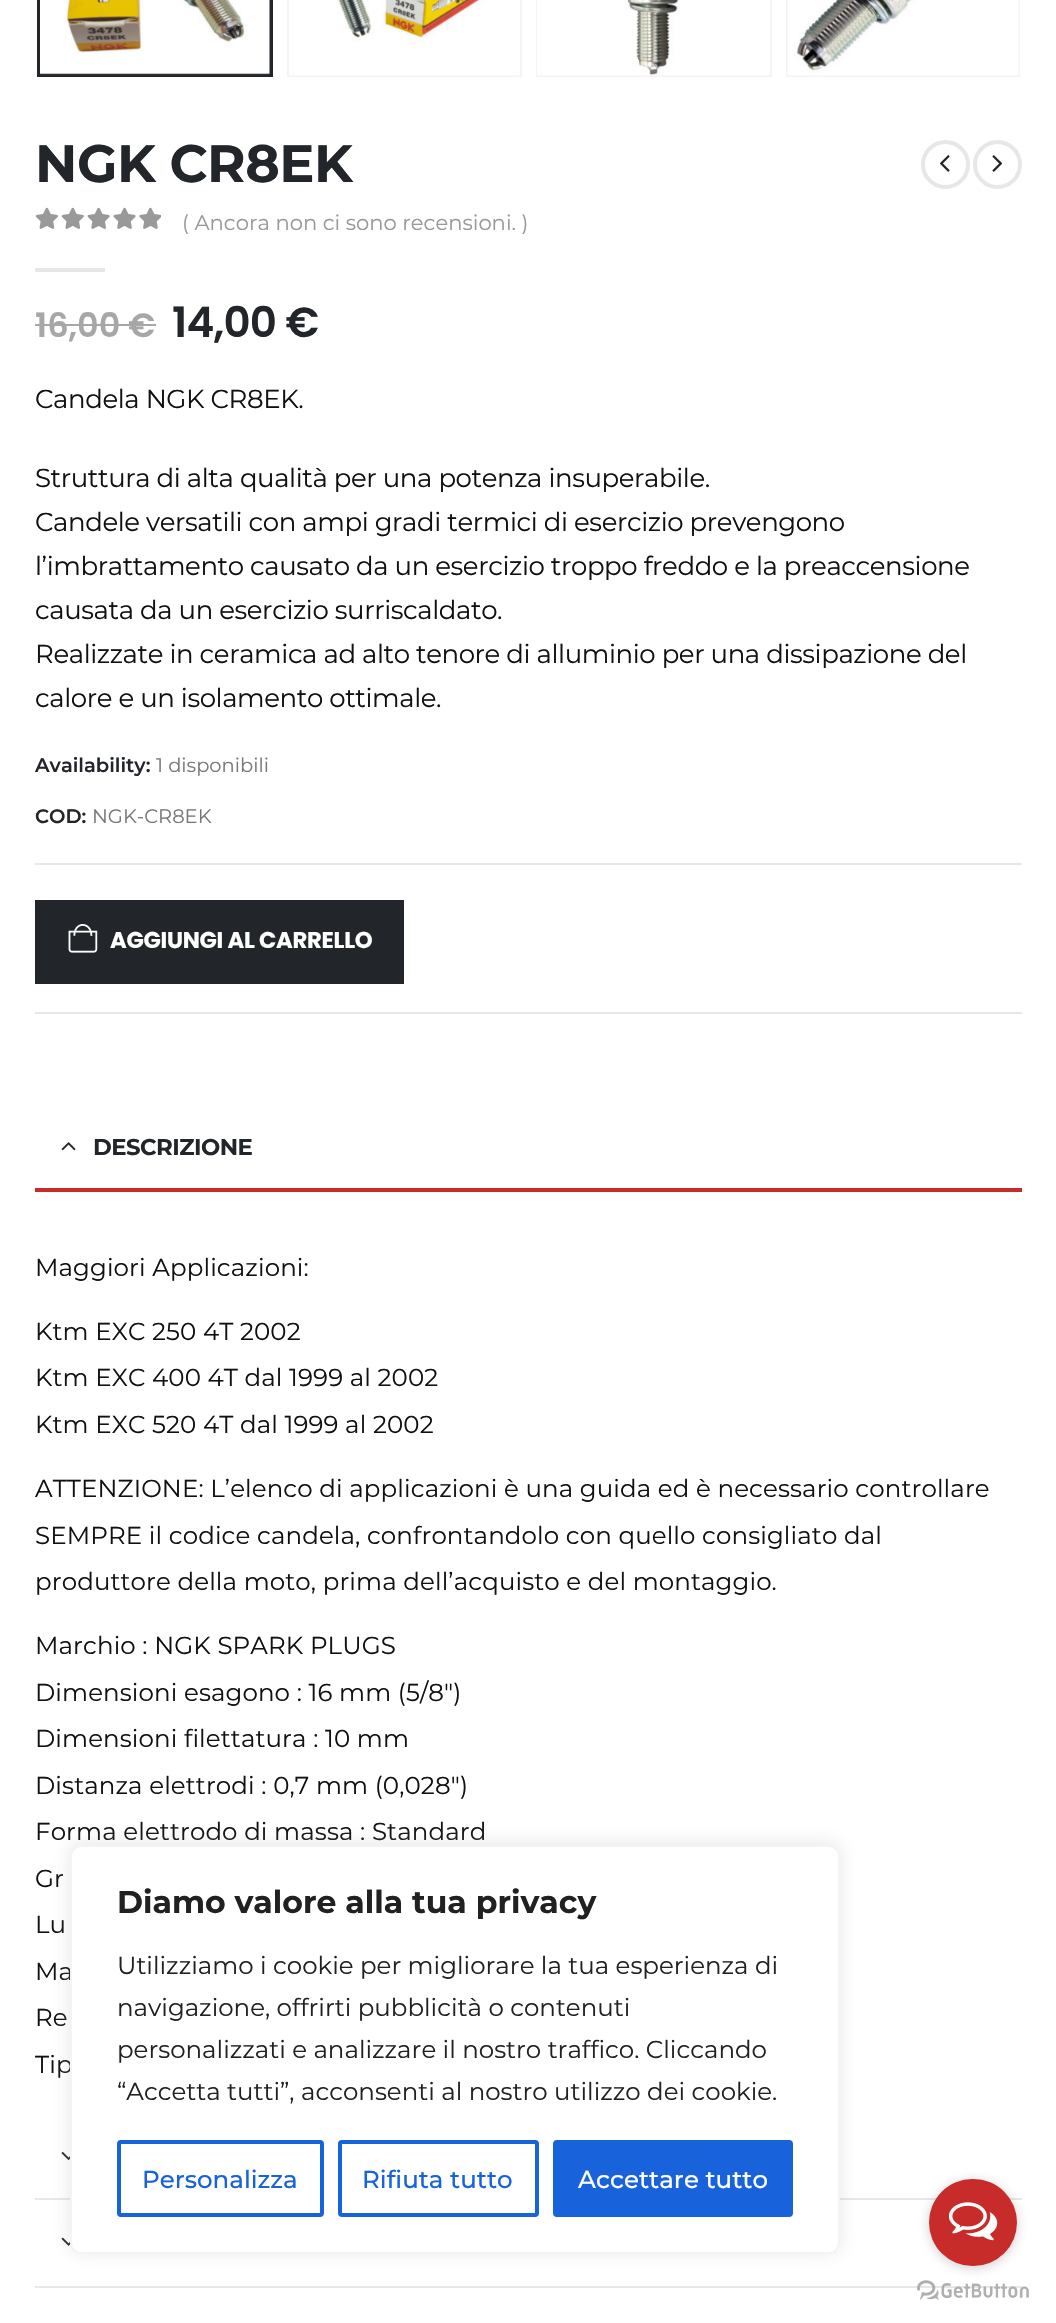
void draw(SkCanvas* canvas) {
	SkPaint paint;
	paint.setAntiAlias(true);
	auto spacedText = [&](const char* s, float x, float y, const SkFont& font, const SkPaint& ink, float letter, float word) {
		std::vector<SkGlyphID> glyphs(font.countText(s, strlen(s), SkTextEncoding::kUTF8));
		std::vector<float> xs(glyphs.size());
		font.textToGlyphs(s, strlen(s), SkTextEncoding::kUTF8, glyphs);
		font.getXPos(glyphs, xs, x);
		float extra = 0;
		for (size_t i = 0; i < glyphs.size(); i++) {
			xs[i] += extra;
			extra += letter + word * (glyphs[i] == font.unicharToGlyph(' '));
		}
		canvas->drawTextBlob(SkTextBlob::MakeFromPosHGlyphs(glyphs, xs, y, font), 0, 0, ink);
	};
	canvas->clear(0xffffffff);
	paint.setStroke(true);
	paint.setStrokeWidth(4);
	paint.setColor(0xff222529);
	canvas->drawRect(SkRect::MakeXYWH(39, -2, 232, 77), paint);
	canvas->drawImageRect(SkImages::DeferredFromEncodedData(SkData::MakeFromFileName("img1.png")), SkRect::MakeXYWH(40, 0, 230, 75), SkSamplingOptions());
	paint.setStrokeWidth(2);
	paint.setColor(0xfff4f4f4);
	canvas->drawRect(SkRect::MakeXYWH(288, -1, 233, 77), paint);
	canvas->drawImageRect(SkImages::DeferredFromEncodedData(SkData::MakeFromFileName("img2.png")), SkRect::MakeXYWH(289, 0, 230, 76), SkSamplingOptions());
	canvas->drawRect(SkRect::MakeXYWH(537, -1, 234, 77), paint);
	canvas->drawImageRect(SkImages::DeferredFromEncodedData(SkData::MakeFromFileName("img3.png")), SkRect::MakeXYWH(537, 0, 233, 76), SkSamplingOptions());
	canvas->drawRect(SkRect::MakeXYWH(787, -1, 232, 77), paint);
	canvas->drawImageRect(SkImages::DeferredFromEncodedData(SkData::MakeFromFileName("img4.png")), SkRect::MakeXYWH(787, 0, 232, 76), SkSamplingOptions());
	SkFont f1(fontMgr->matchFamilyStyle("Montserrat", SkFontStyle::Bold()), 52.5);
	f1.setSubpixel(true);
	paint.setStroke(false);
	paint.setColor(0xff222529);
	spacedText("NGK CR8EK", 35, 182, f1, paint, -0.5, 0);
	paint.setStroke(true);
	paint.setStrokeWidth(4);
	paint.setColor(0xffe7e7e7);
	canvas->drawCircle(945.5, 164.5, 22.5, paint);
	canvas->drawImageRect(SkImages::DeferredFromEncodedData(SkData::MakeFromFileName("img5.png")), SkRect::MakeXYWH(939, 155, 11, 17), SkSamplingOptions());
	canvas->drawCircle(997.5, 164.5, 22.5, paint);
	canvas->drawImageRect(SkImages::DeferredFromEncodedData(SkData::MakeFromFileName("img6.png")), SkRect::MakeXYWH(992, 155, 11, 17), SkSamplingOptions());
	canvas->drawImageRect(SkImages::DeferredFromEncodedData(SkData::MakeFromFileName("img7.png")), SkRect::MakeXYWH(35, 207, 126, 22), SkSamplingOptions());
	SkFont f2(fontMgr->matchFamilyStyle("Montserrat", SkFontStyle::Normal()), 21.1);
	f2.setSubpixel(true);
	paint.setStroke(false);
	paint.setColor(0xff999999);
	canvas->drawString("( Ancora non ci sono recensioni. )", 182, 230, f2, paint);
	paint.setColor(0xffe7e7e7);
	canvas->drawRect(SkRect::MakeXYWH(35, 268, 70, 4), paint);
	SkFont f3(fontMgr->matchFamilyStyle("Poppins", SkFontStyle(600, SkFontStyle::kNormal_Width, SkFontStyle::kUpright_Slant)), 33.5);
	f3.setSubpixel(true);
	paint.setColor(0xffa7a7a7);
	canvas->drawString("16,00 €", 35, 337, f3, paint);
	canvas->drawRect(SkRect::MakeXYWH(35, 324, 121, 2), paint);
	SkFont f4(fontMgr->matchFamilyStyle("Poppins", SkFontStyle(600, SkFontStyle::kNormal_Width, SkFontStyle::kUpright_Slant)), 42);
	f4.setSubpixel(true);
	paint.setColor(0xff222529);
	spacedText("14,00 €", 172, 337, f4, paint, -0.75, 0);
	SkFont f5(fontMgr->matchFamilyStyle("Montserrat", SkFontStyle::Normal()), 26);
	f5.setSubpixel(true);
	paint.setColor(0xff111111);
	spacedText("Candela NGK CR8EK.", 35, 408, f5, paint, -0.4, 0);
	spacedText("Struttura di alta qualità per una potenza insuperabile.", 35, 487, f5, paint, -0.4, 0);
	spacedText("Candele versatili con ampi gradi termici di esercizio prevengono", 35, 531, f5, paint, -0.4, 0);
	spacedText("l’imbrattamento causato da un esercizio troppo freddo e la preaccensione", 35, 575, f5, paint, -0.4, 0);
	spacedText("causata da un esercizio surriscaldato.", 35, 619, f5, paint, -0.4, 0);
	spacedText("Realizzate in ceramica ad alto tenore di alluminio per una dissipazione del", 35, 663, f5, paint, -0.4, 0);
	spacedText("calore e un isolamento ottimale.", 35, 707, f5, paint, -0.4, 0);
	SkFont f6(fontMgr->matchFamilyStyle("Montserrat", SkFontStyle(600, SkFontStyle::kNormal_Width, SkFontStyle::kUpright_Slant)), 19.5);
	f6.setSubpixel(true);
	paint.setColor(0xff222529);
	canvas->drawString("Availability:", 35, 772, f6, paint);
	SkFont f7(fontMgr->matchFamilyStyle("Montserrat", SkFontStyle::Normal()), 19.5);
	f7.setSubpixel(true);
	paint.setColor(0xff777777);
	canvas->drawString("1 disponibili", 156, 772, f7, paint);
	paint.setColor(0xff222529);
	canvas->drawString("COD:", 35, 823, f6, paint);
	paint.setColor(0xff777777);
	canvas->drawString("NGK-CR8EK", 92, 823, f7, paint);
	paint.setColor(0xffe7e7e7);
	canvas->drawRect(SkRect::MakeXYWH(35, 863, 987, 2), paint);
	canvas->drawRect(SkRect::MakeXYWH(35, 1012, 987, 2), paint);
	paint.setColor(0xff222529);
	canvas->drawRect(SkRect::MakeXYWH(35, 900, 369, 84), paint);
	canvas->drawImageRect(SkImages::DeferredFromEncodedData(SkData::MakeFromFileName("img8.png")), SkRect::MakeXYWH(68, 924, 30, 29), SkSamplingOptions());
	SkFont f8(fontMgr->matchFamilyStyle("Poppins", SkFontStyle::Bold()), 22.75);
	f8.setSubpixel(true);
	paint.setColor(0xffffffff);
	spacedText("AGGIUNGI AL CARRELLO", 110, 948, f8, paint, -0.3, 0);
	paint.setColor(0xffc72c2b);
	canvas->drawRect(SkRect::MakeXYWH(35, 1188, 987, 4), paint);
	canvas->drawImageRect(SkImages::DeferredFromEncodedData(SkData::MakeFromFileName("img9.png")), SkRect::MakeXYWH(61, 1142, 15, 9), SkSamplingOptions());
	SkFont f9(fontMgr->matchFamilyStyle("Montserrat", SkFontStyle::Bold()), 22.75);
	f9.setSubpixel(true);
	paint.setColor(0xff222529);
	spacedText("DESCRIZIONE", 93, 1155, f9, paint, -0.5, 0);
	SkFont f10(fontMgr->matchFamilyStyle("Montserrat", SkFontStyle::Normal()), 24.5);
	f10.setSubpixel(true);
	paint.setColor(0xff111111);
	spacedText("Maggiori Applicazioni:", 35, 1276, f10, paint, 0.12, 0);
	spacedText("Ktm EXC 250 4T 2002", 35, 1340, f10, paint, 0.12, 0);
	spacedText("Ktm EXC 400 4T dal 1999 al 2002", 35, 1386, f10, paint, 0.12, 0);
	spacedText("Ktm EXC 520 4T dal 1999 al 2002", 35, 1433, f10, paint, 0.12, 0);
	spacedText("ATTENZIONE: L’elenco di applicazioni è una guida ed è necessario controllare", 35, 1497, f10, paint, 0.12, 0);
	spacedText("SEMPRE il codice candela, confrontandolo con quello consigliato dal", 35, 1544, f10, paint, 0.12, 0);
	spacedText("produttore della moto, prima dell’acquisto e del montaggio.", 35, 1590, f10, paint, 0.12, 0);
	spacedText("Marchio : NGK SPARK PLUGS", 35, 1654, f10, paint, 0.12, 0);
	spacedText("Dimensioni esagono : 16 mm (5/8″)", 35, 1701, f10, paint, 0.12, 0);
	spacedText("Dimensioni filettatura : 10 mm", 35, 1747, f10, paint, 0.12, 0);
	spacedText("Distanza elettrodi : 0,7 mm (0,028″)", 35, 1794, f10, paint, 0.12, 0);
	spacedText("Forma elettrodo di massa : Standard", 35, 1840, f10, paint, 0.12, 0);
	spacedText("Gr", 35, 1887, f10, paint, 0.12, 0);
	spacedText("Lu", 35, 1933, f10, paint, 0.12, 0);
	spacedText("Ma", 35, 1980, f10, paint, 0.12, 0);
	spacedText("Re", 35, 2026, f10, paint, 0.12, 0);
	spacedText("Tip", 35, 2073, f10, paint, 0.12, 0);
	paint.setColor(0xffe7e7e7);
	canvas->drawRect(SkRect::MakeXYWH(35, 2198, 987, 2), paint);
	canvas->drawImageRect(SkImages::DeferredFromEncodedData(SkData::MakeFromFileName("img10.png")), SkRect::MakeXYWH(61, 2152, 9, 8), SkSamplingOptions());
	canvas->drawRect(SkRect::MakeXYWH(35, 2286, 987, 2), paint);
	canvas->drawImageRect(SkImages::DeferredFromEncodedData(SkData::MakeFromFileName("img11.png")), SkRect::MakeXYWH(61, 2237, 10, 9), SkSamplingOptions());
	paint.setColor(0x4dacabab);
	paint.setMaskFilter(SkMaskFilter::MakeBlur(kNormal_SkBlurStyle, 9));
	canvas->drawRoundRect(SkRect::MakeXYWH(70, 1843, 770, 409), 11, 11, paint);
	paint.setMaskFilter(nullptr);
	paint.setColor(0xffffffff);
	canvas->drawRoundRect(SkRect::MakeXYWH(71, 1846, 768, 407), 10, 10, paint);
	paint.setStroke(true);
	paint.setStrokeWidth(2);
	paint.setColor(0xfff4f4f4);
	canvas->drawRoundRect(SkRect::MakeXYWH(71, 1846, 768, 407), 10, 10, paint);
	SkFont f11(fontMgr->matchFamilyStyle("Montserrat", SkFontStyle::Bold()), 31.5);
	f11.setSubpixel(true);
	paint.setStroke(false);
	paint.setColor(0xff212121);
	canvas->drawString("Diamo valore alla tua privacy", 117, 1913, f11, paint);
	canvas->drawString("Utilizziamo i cookie per migliorare la tua esperienza di", 117, 1974, f10, paint);
	canvas->drawString("navigazione, offrirti pubblicità o contenuti", 117, 2016, f10, paint);
	canvas->drawString("personalizzati e analizzare il nostro traffico. Cliccando", 117, 2058, f10, paint);
	canvas->drawString("“Accetta tutti”, acconsenti al nostro utilizzo dei cookie.", 117, 2100, f10, paint);
	paint.setStroke(true);
	paint.setStrokeWidth(4);
	paint.setColor(0xff1863dc);
	canvas->drawRoundRect(SkRect::MakeXYWH(119, 2142, 203, 73), 2, 2, paint);
	SkFont f12(fontMgr->matchFamilyStyle("Montserrat", SkFontStyle(500, SkFontStyle::kNormal_Width, SkFontStyle::kUpright_Slant)), 24.5);
	f12.setSubpixel(true);
	paint.setStroke(false);
	canvas->drawString("Personalizza", 142, 2188, f12, paint);
	paint.setStroke(true);
	canvas->drawRoundRect(SkRect::MakeXYWH(340, 2142, 197, 73), 2, 2, paint);
	paint.setStroke(false);
	canvas->drawString("Rifiuta tutto", 362, 2188, f12, paint);
	canvas->drawRoundRect(SkRect::MakeXYWH(555, 2142, 236, 73), 2, 2, paint);
	paint.setStroke(true);
	canvas->drawRoundRect(SkRect::MakeXYWH(555, 2142, 236, 73), 2, 2, paint);
	paint.setStroke(false);
	paint.setColor(0xffffffff);
	canvas->drawString("Accettare tutto", 578, 2188, f12, paint);
	canvas->drawImageRect(SkImages::DeferredFromEncodedData(SkData::MakeFromFileName("img13.png")), SkRect::MakeXYWH(917, 2280, 112, 20), SkSamplingOptions());
	paint.setColor(0x66888888);
	paint.setMaskFilter(SkMaskFilter::MakeBlur(kNormal_SkBlurStyle, 6));
	canvas->drawRoundRect(SkRect::MakeXYWH(929, 2181, 88, 87), 43.5, 43.5, paint);
	paint.setMaskFilter(nullptr);
	paint.setColor(0xffc72c2b);
	canvas->drawRoundRect(SkRect::MakeXYWH(929, 2179, 88, 87), 43.5, 43.5, paint);
	canvas->drawImageRect(SkImages::DeferredFromEncodedData(SkData::MakeFromFileName("img12.png")), SkRect::MakeXYWH(948, 2202, 50, 39), SkSamplingOptions());
}
